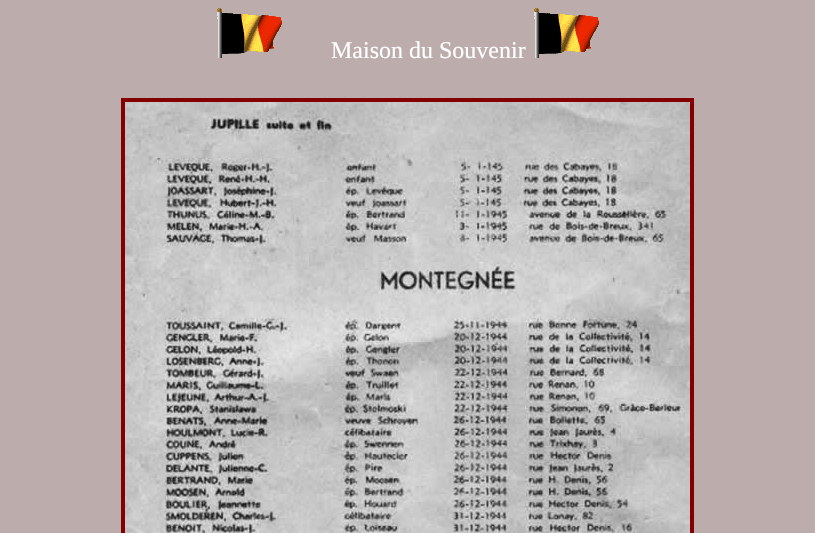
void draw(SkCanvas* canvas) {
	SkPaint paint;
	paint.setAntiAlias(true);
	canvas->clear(0xffbcacac);
	canvas->drawImageRect(SkImages::DeferredFromEncodedData(SkData::MakeFromFileName("img1.png")), SkRect::MakeXYWH(217, 8, 65, 50), SkSamplingOptions());
	SkFont f1(fontMgr->matchFamilyStyle("Liberation Serif", SkFontStyle::Normal()), 24);
	f1.setSubpixel(true);
	paint.setColor(0xffffffff);
	canvas->drawString("Maison du Souvenir", 331, 58, f1, paint);
	canvas->drawImageRect(SkImages::DeferredFromEncodedData(SkData::MakeFromFileName("img1.png")), SkRect::MakeXYWH(534, 8, 65, 50), SkSamplingOptions());
	paint.setStroke(true);
	paint.setStrokeWidth(4);
	paint.setColor(0xff840000);
	canvas->drawRect(SkRect::MakeXYWH(123, 100, 569, 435), paint);
	canvas->drawImageRect(SkImages::DeferredFromEncodedData(SkData::MakeFromFileName("img2.png")), SkRect::MakeXYWH(125, 102, 565, 431), SkSamplingOptions());
}
